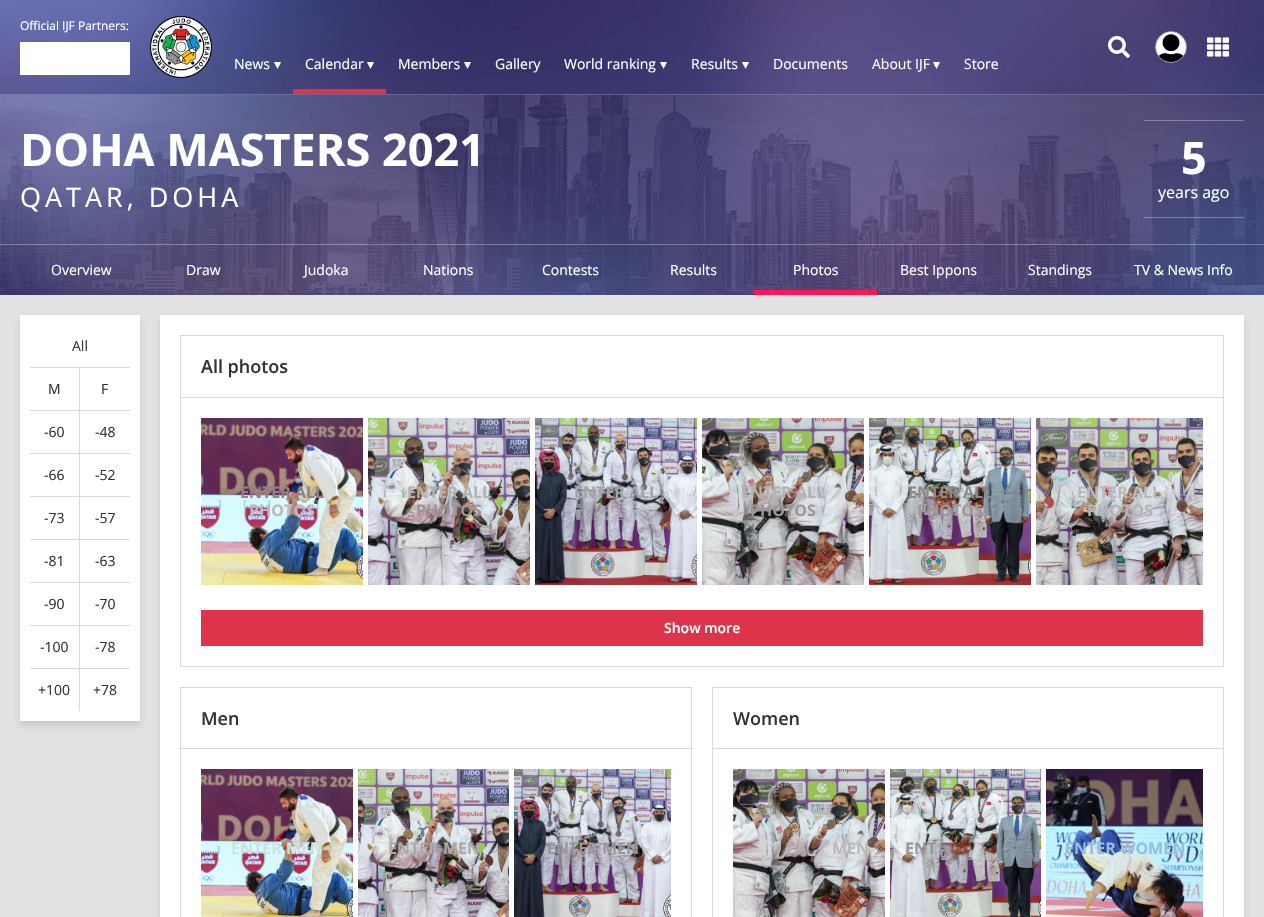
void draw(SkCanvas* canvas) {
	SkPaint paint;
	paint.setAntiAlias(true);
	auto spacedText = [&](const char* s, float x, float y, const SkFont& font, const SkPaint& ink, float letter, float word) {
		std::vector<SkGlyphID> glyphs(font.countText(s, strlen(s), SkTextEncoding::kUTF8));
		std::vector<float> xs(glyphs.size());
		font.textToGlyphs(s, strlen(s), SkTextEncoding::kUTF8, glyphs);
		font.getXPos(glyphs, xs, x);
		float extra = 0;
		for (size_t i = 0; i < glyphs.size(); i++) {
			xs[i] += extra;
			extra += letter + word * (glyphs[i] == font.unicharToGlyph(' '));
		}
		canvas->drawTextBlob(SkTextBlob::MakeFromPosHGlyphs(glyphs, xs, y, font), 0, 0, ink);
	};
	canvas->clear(0xffe2e2e2);
	canvas->drawImageRect(SkImages::DeferredFromEncodedData(SkData::MakeFromFileName("img1.png")), SkRect::MakeXYWH(0, 0, 1264, 95), SkSamplingOptions());
	paint.setColor(0x33ffffff);
	canvas->drawRect(SkRect::MakeXYWH(0, 94, 1264, 1), paint);
	SkFont f1(fontMgr->matchFamilyStyle("Open Sans", SkFontStyle::Normal()), 12);
	f1.setSubpixel(true);
	paint.setColor(0xffffffff);
	canvas->drawString("Official IJF Partners:", 20, 30, f1, paint);
	canvas->drawRect(SkRect::MakeXYWH(20, 42, 110, 33), paint);
	canvas->drawImageRect(SkImages::DeferredFromEncodedData(SkData::MakeFromFileName("img2.png")), SkRect::MakeXYWH(150, 16, 62, 62), SkSamplingOptions());
	canvas->drawImageRect(SkImages::DeferredFromEncodedData(SkData::MakeFromFileName("img3.png")), SkRect::MakeXYWH(1108, 36, 22, 22), SkSamplingOptions());
	paint.setStroke(true);
	paint.setStrokeWidth(1);
	paint.setColor(0x80ffffff);
	canvas->drawCircle(1171, 47, 15.5, paint);
	canvas->drawImageRect(SkImages::DeferredFromEncodedData(SkData::MakeFromFileName("img4.png")), SkRect::MakeXYWH(1156, 32, 30, 30), SkSamplingOptions());
	canvas->drawImageRect(SkImages::DeferredFromEncodedData(SkData::MakeFromFileName("img5.png")), SkRect::MakeXYWH(1207, 37, 22, 20), SkSamplingOptions());
	SkFont f2(fontMgr->matchFamilyStyle("Open Sans", SkFontStyle::Normal()), 14);
	f2.setSubpixel(true);
	paint.setStroke(false);
	paint.setColor(0xffffffff);
	canvas->drawString("News", 234, 69, f2, paint);
	SkFont f3(fontMgr->matchFamilyStyle("DejaVu Sans", SkFontStyle::Normal()), 14);
	f3.setSubpixel(true);
	canvas->drawString("▾", 274, 69, f3, paint);
	canvas->drawString("Calendar", 305, 69, f2, paint);
	canvas->drawString("▾", 367, 69, f3, paint);
	paint.setColor(0xffdd344c);
	canvas->drawRect(SkRect::MakeXYWH(293, 89, 93, 5), paint);
	paint.setColor(0xffffffff);
	canvas->drawString("Members", 398, 69, f2, paint);
	canvas->drawString("▾", 464, 69, f3, paint);
	canvas->drawString("Gallery", 495, 69, f2, paint);
	canvas->drawString("World ranking", 564, 69, f2, paint);
	canvas->drawString("▾", 660, 69, f3, paint);
	canvas->drawString("Results", 691, 69, f2, paint);
	canvas->drawString("▾", 742, 69, f3, paint);
	canvas->drawString("Documents", 773, 69, f2, paint);
	canvas->drawString("About IJF", 872, 69, f2, paint);
	canvas->drawString("▾", 933, 69, f3, paint);
	canvas->drawString("Store", 964, 69, f2, paint);
	canvas->drawImageRect(SkImages::DeferredFromEncodedData(SkData::MakeFromFileName("img6.png")), SkRect::MakeXYWH(0, 95, 1264, 200), SkSamplingOptions());
	canvas->drawImageRect(SkImages::DeferredFromEncodedData(SkData::MakeFromFileName("img7.png")), SkRect::MakeXYWH(0, 95, 1264, 200), SkSamplingOptions());
	SkFont f4(fontMgr->matchFamilyStyle("Open Sans", SkFontStyle::Bold()), 45);
	f4.setSubpixel(true);
	canvas->drawString("DOHA MASTERS 2021", 20, 166, f4, paint);
	SkFont f5(fontMgr->matchFamilyStyle("Open Sans", SkFontStyle::Normal()), 27);
	f5.setSubpixel(true);
	spacedText("QATAR, DOHA", 20, 207, f5, paint, 4, 0);
	paint.setColor(0x4dffffff);
	canvas->drawRect(SkRect::MakeXYWH(1144, 120, 100, 1), paint);
	canvas->drawRect(SkRect::MakeXYWH(1144, 217, 100, 1), paint);
	paint.setColor(0xffffffff);
	canvas->drawString("5", 1181, 174, f4, paint);
	SkFont f6(fontMgr->matchFamilyStyle("Open Sans", SkFontStyle::Normal()), 16);
	f6.setSubpixel(true);
	canvas->drawString("years ago", 1158, 198, f6, paint);
	paint.setColor(0x4dffffff);
	canvas->drawRect(SkRect::MakeXYWH(0, 244, 1264, 1), paint);
	paint.setColor(0xffffffff);
	canvas->drawString("Overview", 51, 275, f2, paint);
	canvas->drawString("Draw", 186, 275, f2, paint);
	canvas->drawString("Judoka", 304, 275, f2, paint);
	canvas->drawString("Nations", 423, 275, f2, paint);
	canvas->drawString("Contests", 542, 275, f2, paint);
	canvas->drawString("Results", 670, 275, f2, paint);
	canvas->drawString("Photos", 793, 275, f2, paint);
	paint.setColor(0xffff1553);
	canvas->drawRect(SkRect::MakeXYWH(754, 290, 123, 5), paint);
	paint.setColor(0xffffffff);
	canvas->drawString("Best Ippons", 900, 275, f2, paint);
	canvas->drawString("Standings", 1028, 275, f2, paint);
	canvas->drawString("TV & News Info", 1134, 275, f2, paint);
	paint.setColor(0x1a000000);
	paint.setMaskFilter(SkMaskFilter::MakeBlur(kNormal_SkBlurStyle, 2.5));
	canvas->drawRect(SkRect::MakeXYWH(20, 320, 120, 406), paint);
	paint.setMaskFilter(nullptr);
	paint.setColor(0xffffffff);
	canvas->drawRect(SkRect::MakeXYWH(20, 315, 120, 406), paint);
	paint.setColor(0xffd9d9d9);
	canvas->drawRect(SkRect::MakeXYWH(30, 367, 100, 1), paint);
	paint.setColor(0xff333333);
	canvas->drawString("All", 72, 351, f2, paint);
	paint.setColor(0xffd9d9d9);
	canvas->drawRect(SkRect::MakeXYWH(79, 368, 1, 343), paint);
	canvas->drawRect(SkRect::MakeXYWH(30, 410, 100, 1), paint);
	paint.setColor(0xff333333);
	canvas->drawString("M", 48, 394, f2, paint);
	canvas->drawString("F", 101, 394, f2, paint);
	paint.setColor(0xffd9d9d9);
	canvas->drawRect(SkRect::MakeXYWH(30, 453, 100, 1), paint);
	paint.setColor(0xff333333);
	canvas->drawString("-60", 44, 437, f2, paint);
	canvas->drawString("-48", 95, 437, f2, paint);
	paint.setColor(0xffd9d9d9);
	canvas->drawRect(SkRect::MakeXYWH(30, 496, 100, 1), paint);
	paint.setColor(0xff333333);
	canvas->drawString("-66", 44, 480, f2, paint);
	canvas->drawString("-52", 95, 480, f2, paint);
	paint.setColor(0xffd9d9d9);
	canvas->drawRect(SkRect::MakeXYWH(30, 539, 100, 1), paint);
	paint.setColor(0xff333333);
	canvas->drawString("-73", 44, 523, f2, paint);
	canvas->drawString("-57", 95, 523, f2, paint);
	paint.setColor(0xffd9d9d9);
	canvas->drawRect(SkRect::MakeXYWH(30, 582, 100, 1), paint);
	paint.setColor(0xff333333);
	canvas->drawString("-81", 44, 566, f2, paint);
	canvas->drawString("-63", 95, 566, f2, paint);
	paint.setColor(0xffd9d9d9);
	canvas->drawRect(SkRect::MakeXYWH(30, 625, 100, 1), paint);
	paint.setColor(0xff333333);
	canvas->drawString("-90", 44, 609, f2, paint);
	canvas->drawString("-70", 95, 609, f2, paint);
	paint.setColor(0xffd9d9d9);
	canvas->drawRect(SkRect::MakeXYWH(30, 668, 100, 1), paint);
	paint.setColor(0xff333333);
	canvas->drawString("-100", 40, 652, f2, paint);
	canvas->drawString("-78", 95, 652, f2, paint);
	canvas->drawString("+100", 38, 695, f2, paint);
	canvas->drawString("+78", 93, 695, f2, paint);
	paint.setColor(0x1a000000);
	paint.setMaskFilter(SkMaskFilter::MakeBlur(kNormal_SkBlurStyle, 2.5));
	canvas->drawRect(SkRect::MakeXYWH(160, 320, 1084, 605), paint);
	paint.setMaskFilter(nullptr);
	paint.setColor(0xffffffff);
	canvas->drawRect(SkRect::MakeXYWH(160, 315, 1084, 602), paint);
	paint.setStroke(true);
	paint.setColor(0xffdadada);
	canvas->drawRect(SkRect::MakeXYWH(180.5, 335.5, 1043, 331), paint);
	paint.setStroke(false);
	canvas->drawRect(SkRect::MakeXYWH(181, 397, 1042, 1), paint);
	SkFont f7(fontMgr->matchFamilyStyle("Open Sans", SkFontStyle(600, SkFontStyle::kNormal_Width, SkFontStyle::kUpright_Slant)), 18);
	f7.setSubpixel(true);
	paint.setColor(0xff333333);
	canvas->drawString("All photos", 201, 373, f7, paint);
	canvas->drawImageRect(SkImages::DeferredFromEncodedData(SkData::MakeFromFileName("img8.png")), SkRect::MakeXYWH(201, 418, 162, 167), SkSamplingOptions());
	SkFont f8(fontMgr->matchFamilyStyle("Open Sans", SkFontStyle::Bold()), 16);
	f8.setSubpixel(true);
	paint.setColor(0xff938088);
	canvas->drawString("ENTER ALL", 240, 498, f8, paint);
	paint.setColor(0xffbfb4c3);
	canvas->drawString("PHOTOS", 249, 516, f8, paint);
	canvas->drawImageRect(SkImages::DeferredFromEncodedData(SkData::MakeFromFileName("img9.png")), SkRect::MakeXYWH(368, 418, 162, 167), SkSamplingOptions());
	paint.setColor(0xffb4b1af);
	canvas->drawString("ENTER ALL", 407, 498, f8, paint);
	paint.setColor(0xffa09295);
	canvas->drawString("PHOTOS", 416, 516, f8, paint);
	canvas->drawImageRect(SkImages::DeferredFromEncodedData(SkData::MakeFromFileName("img10.png")), SkRect::MakeXYWH(535, 418, 162, 167), SkSamplingOptions());
	paint.setColor(0xffa1a3aa);
	canvas->drawString("ENTER ALL", 574, 498, f8, paint);
	canvas->drawImageRect(SkImages::DeferredFromEncodedData(SkData::MakeFromFileName("img11.png")), SkRect::MakeXYWH(702, 418, 162, 167), SkSamplingOptions());
	paint.setColor(0xffb4b1af);
	canvas->drawString("ENTER ALL", 741, 498, f8, paint);
	paint.setColor(0xff9a9699);
	canvas->drawString("PHOTOS", 750, 516, f8, paint);
	canvas->drawImageRect(SkImages::DeferredFromEncodedData(SkData::MakeFromFileName("img12.png")), SkRect::MakeXYWH(869, 418, 162, 167), SkSamplingOptions());
	paint.setColor(0xff8e8989);
	canvas->drawString("ENTER ALL", 908, 498, f8, paint);
	paint.setColor(0xffa2979b);
	canvas->drawString("PHOTOS", 917, 516, f8, paint);
	canvas->drawImageRect(SkImages::DeferredFromEncodedData(SkData::MakeFromFileName("img13.png")), SkRect::MakeXYWH(1036, 418, 167, 167), SkSamplingOptions());
	paint.setColor(0xffbbb8b8);
	canvas->drawString("ENTER ALL", 1077, 498, f8, paint);
	paint.setColor(0xffb5b3b6);
	canvas->drawString("PHOTOS", 1087, 516, f8, paint);
	paint.setColor(0xffdd344c);
	canvas->drawRect(SkRect::MakeXYWH(201, 610, 1002, 36), paint);
	SkFont f9(fontMgr->matchFamilyStyle("Open Sans", SkFontStyle(600, SkFontStyle::kNormal_Width, SkFontStyle::kUpright_Slant)), 14);
	f9.setSubpixel(true);
	paint.setColor(0xffffffff);
	canvas->drawString("Show more", 664, 633, f9, paint);
	paint.setStroke(true);
	paint.setColor(0xffdadada);
	canvas->drawRect(SkRect::MakeXYWH(180.5, 687.5, 511, 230), paint);
	paint.setStroke(false);
	canvas->drawRect(SkRect::MakeXYWH(181, 748, 510, 1), paint);
	paint.setColor(0xff333333);
	canvas->drawString("Men", 201, 725, f7, paint);
	canvas->drawImageRect(SkImages::DeferredFromEncodedData(SkData::MakeFromFileName("img14.png")), SkRect::MakeXYWH(201, 769, 152, 148), SkSamplingOptions());
	paint.setColor(0xffcbe2e2);
	canvas->drawString("ENTER MEN", 231, 854, f8, paint);
	canvas->drawImageRect(SkImages::DeferredFromEncodedData(SkData::MakeFromFileName("img15.png")), SkRect::MakeXYWH(358, 769, 151, 148), SkSamplingOptions());
	paint.setColor(0xffaea9a9);
	canvas->drawString("ENTER MEN", 388, 854, f8, paint);
	canvas->drawImageRect(SkImages::DeferredFromEncodedData(SkData::MakeFromFileName("img16.png")), SkRect::MakeXYWH(514, 769, 157, 148), SkSamplingOptions());
	paint.setColor(0xff9a9699);
	canvas->drawString("ENTER MEN", 547, 854, f8, paint);
	paint.setStroke(true);
	paint.setColor(0xffdadada);
	canvas->drawRect(SkRect::MakeXYWH(712.5, 687.5, 511, 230), paint);
	paint.setStroke(false);
	canvas->drawRect(SkRect::MakeXYWH(713, 748, 510, 1), paint);
	paint.setColor(0xff333333);
	canvas->drawString("Women", 733, 725, f7, paint);
	canvas->drawImageRect(SkImages::DeferredFromEncodedData(SkData::MakeFromFileName("img17.png")), SkRect::MakeXYWH(733, 769, 152, 148), SkSamplingOptions());
	paint.setColor(0xffbbb8b8);
	canvas->drawString("MEN", 832, 854, f8, paint);
	canvas->drawImageRect(SkImages::DeferredFromEncodedData(SkData::MakeFromFileName("img18.png")), SkRect::MakeXYWH(890, 769, 151, 148), SkSamplingOptions());
	paint.setColor(0xff9a9699);
	canvas->drawString("ENT", 905, 854, f8, paint);
	canvas->drawImageRect(SkImages::DeferredFromEncodedData(SkData::MakeFromFileName("img19.png")), SkRect::MakeXYWH(1046, 769, 157, 148), SkSamplingOptions());
	paint.setColor(0xff98bddd);
	canvas->drawString("ENTER WOMEN", 1065, 854, f8, paint);
}
